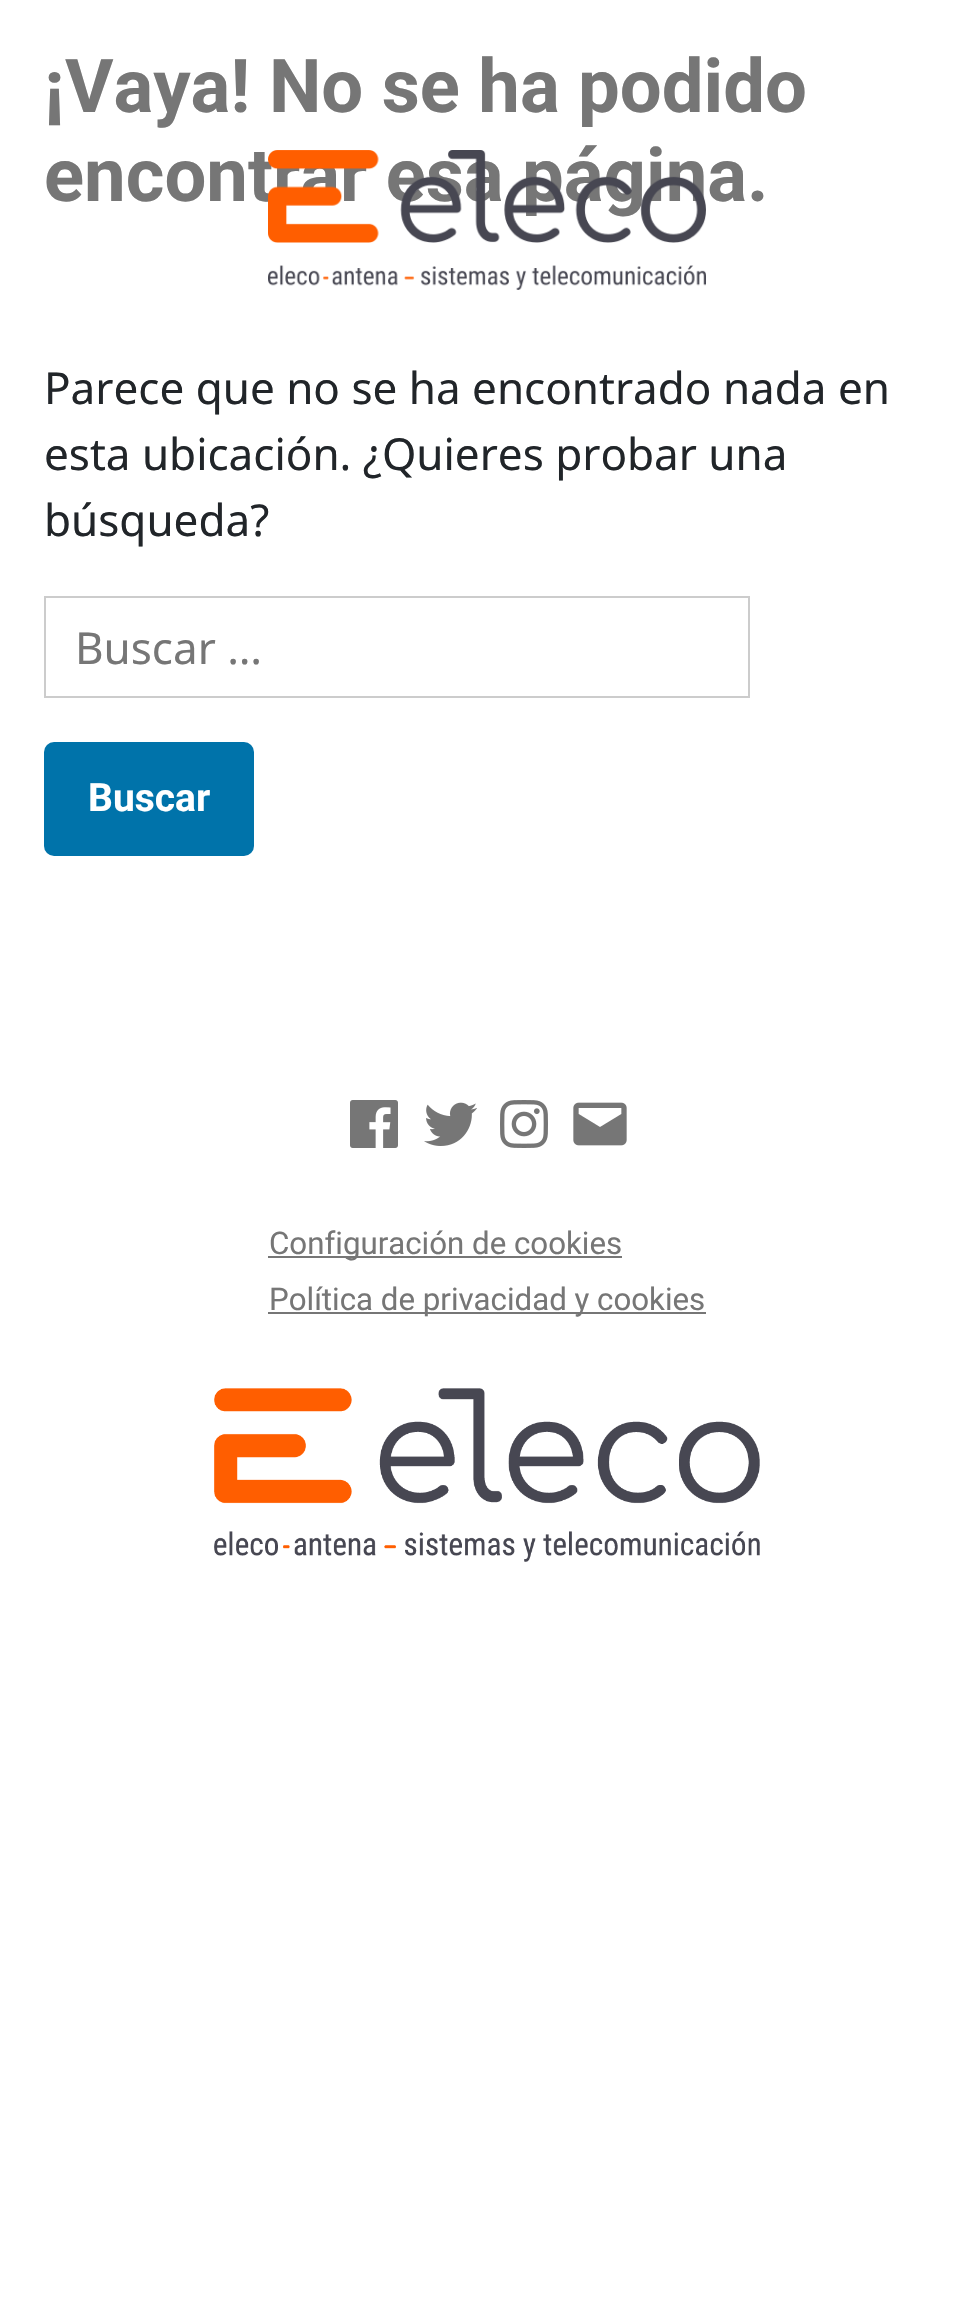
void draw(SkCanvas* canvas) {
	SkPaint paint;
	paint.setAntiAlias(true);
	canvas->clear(0xffffffff);
	SkFont f1(fontMgr->matchFamilyStyle("Roboto", SkFontStyle::Bold()), 74.25);
	f1.setSubpixel(true);
	paint.setColor(0xff767676);
	canvas->drawString("¡Vaya! No se ha podido", 44, 112, f1, paint);
	canvas->drawString("encontrar esa página.", 44, 201, f1, paint);
	SkFont f2(fontMgr->matchFamilyStyle("Noto Sans", SkFontStyle::Normal()), 44);
	f2.setSubpixel(true);
	paint.setColor(0xff212529);
	canvas->drawString("Parece que no se ha encontrado nada en", 44, 404, f2, paint);
	canvas->drawString("esta ubicación. ¿Quieres probar una", 44, 470, f2, paint);
	canvas->drawString("búsqueda?", 44, 536, f2, paint);
	paint.setStroke(true);
	paint.setStrokeWidth(2);
	paint.setColor(0xffcccccc);
	canvas->drawRect(SkRect::MakeXYWH(45, 597, 704, 100), paint);
	paint.setStroke(false);
	paint.setColor(0xff767676);
	canvas->drawString("Buscar …", 75, 664, f2, paint);
	paint.setColor(0xff0073aa);
	canvas->drawRoundRect(SkRect::MakeXYWH(44, 742, 210, 114), 10, 10, paint);
	SkFont f3(fontMgr->matchFamilyStyle("Roboto", SkFontStyle::Bold()), 39);
	f3.setSubpixel(true);
	paint.setColor(0xffffffff);
	canvas->drawString("Buscar", 88, 811, f3, paint);
	canvas->drawImageRect(SkImages::DeferredFromEncodedData(SkData::MakeFromFileName("img1.png")), SkRect::MakeXYWH(268, 150, 438, 140), SkSamplingOptions());
	canvas->drawImageRect(SkImages::DeferredFromEncodedData(SkData::MakeFromFileName("img2.png")), SkRect::MakeXYWH(350, 1100, 48, 48), SkSamplingOptions());
	canvas->drawImageRect(SkImages::DeferredFromEncodedData(SkData::MakeFromFileName("img3.png")), SkRect::MakeXYWH(424, 1102, 53, 44), SkSamplingOptions());
	canvas->drawImageRect(SkImages::DeferredFromEncodedData(SkData::MakeFromFileName("img4.png")), SkRect::MakeXYWH(500, 1100, 48, 48), SkSamplingOptions());
	canvas->drawImageRect(SkImages::DeferredFromEncodedData(SkData::MakeFromFileName("img5.png")), SkRect::MakeXYWH(573, 1102, 54, 44), SkSamplingOptions());
	paint.setColor(0xff767676);
	canvas->drawRect(SkRect::MakeXYWH(268, 1256, 354, 2), paint);
	SkFont f4(fontMgr->matchFamilyStyle("Roboto", SkFontStyle::Normal()), 31.25);
	f4.setSubpixel(true);
	canvas->drawString("Configuración de cookies", 269, 1254, f4, paint);
	canvas->drawRect(SkRect::MakeXYWH(268, 1312, 438, 2), paint);
	canvas->drawString("Política de privacidad y cookies", 269, 1310, f4, paint);
	canvas->drawImageRect(SkImages::DeferredFromEncodedData(SkData::MakeFromFileName("img6.png")), SkRect::MakeXYWH(214, 1388, 546, 174), SkSamplingOptions());
}
